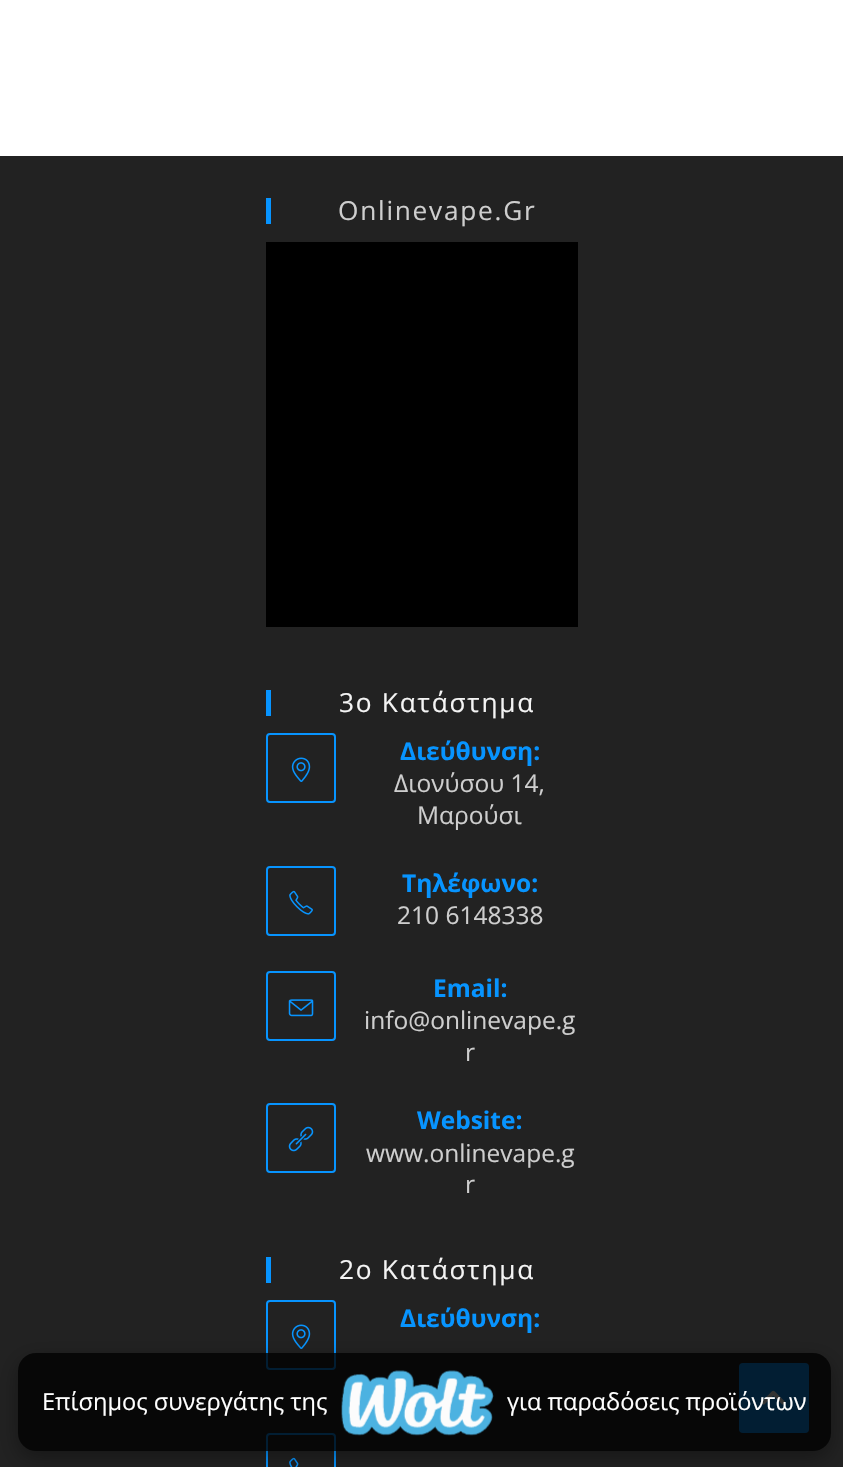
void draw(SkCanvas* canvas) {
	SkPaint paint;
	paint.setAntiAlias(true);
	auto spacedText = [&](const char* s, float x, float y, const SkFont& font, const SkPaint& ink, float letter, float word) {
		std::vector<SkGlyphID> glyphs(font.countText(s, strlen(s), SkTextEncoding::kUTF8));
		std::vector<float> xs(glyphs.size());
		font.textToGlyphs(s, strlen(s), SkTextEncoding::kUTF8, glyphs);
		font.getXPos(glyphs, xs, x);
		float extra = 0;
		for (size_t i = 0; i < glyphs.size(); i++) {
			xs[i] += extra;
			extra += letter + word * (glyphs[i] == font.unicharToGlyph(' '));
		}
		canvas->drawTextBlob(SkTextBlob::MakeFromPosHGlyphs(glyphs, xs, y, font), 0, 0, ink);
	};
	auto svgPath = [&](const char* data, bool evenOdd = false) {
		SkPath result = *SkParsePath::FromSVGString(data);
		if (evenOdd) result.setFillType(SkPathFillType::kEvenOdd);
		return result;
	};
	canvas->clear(0xffffffff);
	paint.setColor(0xff222222);
	canvas->drawRect(SkRect::MakeXYWH(0, 156, 843, 1311), paint);
	paint.setColor(0xff0794ff);
	canvas->drawRect(SkRect::MakeXYWH(266, 198, 5, 26), paint);
	SkFont f1(fontMgr->matchFamilyStyle("Open Sans", SkFontStyle::Normal()), 26.25);
	f1.setSubpixel(true);
	paint.setColor(0xffcecece);
	spacedText("Onlinevape.Gr", 338, 220, f1, paint, 1.75, 0);
	paint.setColor(0xff000000);
	canvas->drawRect(SkRect::MakeXYWH(266, 242, 312, 385), paint);
	paint.setColor(0xff0794ff);
	canvas->drawRect(SkRect::MakeXYWH(266, 690, 5, 26), paint);
	paint.setColor(0xfff4f4f4);
	spacedText("3o Κατάστημα", 339, 712, f1, paint, 1.75, 0);
	paint.setStroke(true);
	paint.setStrokeWidth(2);
	paint.setColor(0xff0794ff);
	canvas->drawRoundRect(SkRect::MakeXYWH(267, 734, 68, 68), 3, 3, paint);
	canvas->drawImageRect(SkImages::DeferredFromEncodedData(SkData::MakeFromFileName("img1.png")), SkRect::MakeXYWH(291, 757, 20, 25), SkSamplingOptions());
	SkFont f2(fontMgr->matchFamilyStyle("Open Sans", SkFontStyle::Bold()), 24.5);
	f2.setSubpixel(true);
	paint.setStroke(false);
	canvas->drawString("Διεύθυνση:", 400, 760, f2, paint);
	SkFont f3(fontMgr->matchFamilyStyle("Open Sans", SkFontStyle::Normal()), 24.5);
	f3.setSubpixel(true);
	paint.setColor(0xffcecece);
	canvas->drawString("Διονύσου 14,", 394, 792, f3, paint);
	canvas->drawString("Μαρούσι", 417, 824, f3, paint);
	paint.setStroke(true);
	paint.setColor(0xff0794ff);
	canvas->drawRoundRect(SkRect::MakeXYWH(267, 867, 68, 68), 3, 3, paint);
	canvas->drawImageRect(SkImages::DeferredFromEncodedData(SkData::MakeFromFileName("img2.png")), SkRect::MakeXYWH(289, 890, 24, 25), SkSamplingOptions());
	paint.setStroke(false);
	canvas->drawString("Τηλέφωνο:", 402, 892, f2, paint);
	paint.setColor(0xffcecece);
	canvas->drawString("210 6148338", 397, 924, f3, paint);
	paint.setStroke(true);
	paint.setColor(0xff0794ff);
	canvas->drawRoundRect(SkRect::MakeXYWH(267, 972, 68, 68), 3, 3, paint);
	canvas->drawImageRect(SkImages::DeferredFromEncodedData(SkData::MakeFromFileName("img3.png")), SkRect::MakeXYWH(288, 999, 26, 18), SkSamplingOptions());
	paint.setStroke(false);
	canvas->drawString("Email:", 433, 997, f2, paint);
	paint.setColor(0xffcecece);
	canvas->drawString("info@onlinevape.g", 364, 1029, f3, paint);
	canvas->drawString("r", 465, 1061, f3, paint);
	paint.setStroke(true);
	paint.setColor(0xff0794ff);
	canvas->drawRoundRect(SkRect::MakeXYWH(267, 1104, 68, 68), 3, 3, paint);
	canvas->drawImageRect(SkImages::DeferredFromEncodedData(SkData::MakeFromFileName("img4.png")), SkRect::MakeXYWH(288, 1126, 26, 26), SkSamplingOptions());
	paint.setStroke(false);
	canvas->drawString("Website:", 417, 1129, f2, paint);
	paint.setColor(0xffcecece);
	canvas->drawString("www.onlinevape.g", 366, 1162, f3, paint);
	canvas->drawString("r", 465, 1193, f3, paint);
	paint.setColor(0xff0794ff);
	canvas->drawRect(SkRect::MakeXYWH(266, 1257, 5, 26), paint);
	paint.setColor(0xfff4f4f4);
	spacedText("2o Κατάστημα", 339, 1279, f1, paint, 1.75, 0);
	paint.setStroke(true);
	paint.setColor(0xff0794ff);
	canvas->drawRoundRect(SkRect::MakeXYWH(267, 1301, 68, 68), 3, 3, paint);
	canvas->drawImageRect(SkImages::DeferredFromEncodedData(SkData::MakeFromFileName("img1.png")), SkRect::MakeXYWH(291, 1324, 20, 25), SkSamplingOptions());
	paint.setStroke(false);
	canvas->drawString("Διεύθυνση:", 400, 1327, f2, paint);
	paint.setStroke(true);
	canvas->drawRoundRect(SkRect::MakeXYWH(267, 1434, 68, 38), 3, 3, paint);
	canvas->drawImageRect(SkImages::DeferredFromEncodedData(SkData::MakeFromFileName("img5.png")), SkRect::MakeXYWH(289, 1457, 10, 10), SkSamplingOptions());
	paint.setStroke(false);
	canvas->drawRoundRect(SkRect::MakeXYWH(739, 1363, 70, 70), 4, 4, paint);
	canvas->drawImageRect(SkImages::DeferredFromEncodedData(SkData::MakeFromFileName("img6.png")), SkRect::MakeXYWH(761, 1390, 25, 15), SkSamplingOptions());
	canvas->save();
	canvas->clipPath(svgPath("M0 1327H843V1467H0ZM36 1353H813C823 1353 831 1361 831 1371V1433C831 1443 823 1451 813 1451H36C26 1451 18 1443 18 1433V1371C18 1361 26 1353 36 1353Z", true), true);
	paint.setColor(0x59000000);
	paint.setMaskFilter(SkMaskFilter::MakeBlur(kNormal_SkBlurStyle, 10.5));
	canvas->drawRoundRect(SkRect::MakeXYWH(18, 1360, 813, 98), 18, 18, paint);
	paint.setMaskFilter(nullptr);
	canvas->restore();
	paint.setColor(0xcc000000);
	canvas->drawRoundRect(SkRect::MakeXYWH(18, 1353, 813, 98), 18, 18, paint);
	SkFont f4(fontMgr->matchFamilyStyle("Open Sans", SkFontStyle::Normal()), 23.6);
	f4.setSubpixel(true);
	paint.setColor(0xffffffff);
	canvas->drawString("Επίσημος συνεργάτης της", 42, 1410, f4, paint);
	canvas->drawImageRect(SkImages::DeferredFromEncodedData(SkData::MakeFromFileName("img7.png")), SkRect::MakeXYWH(341, 1370, 153, 66), SkSamplingOptions());
	canvas->drawString("για παραδόσεις προϊόντων", 507, 1410, f4, paint);
}
